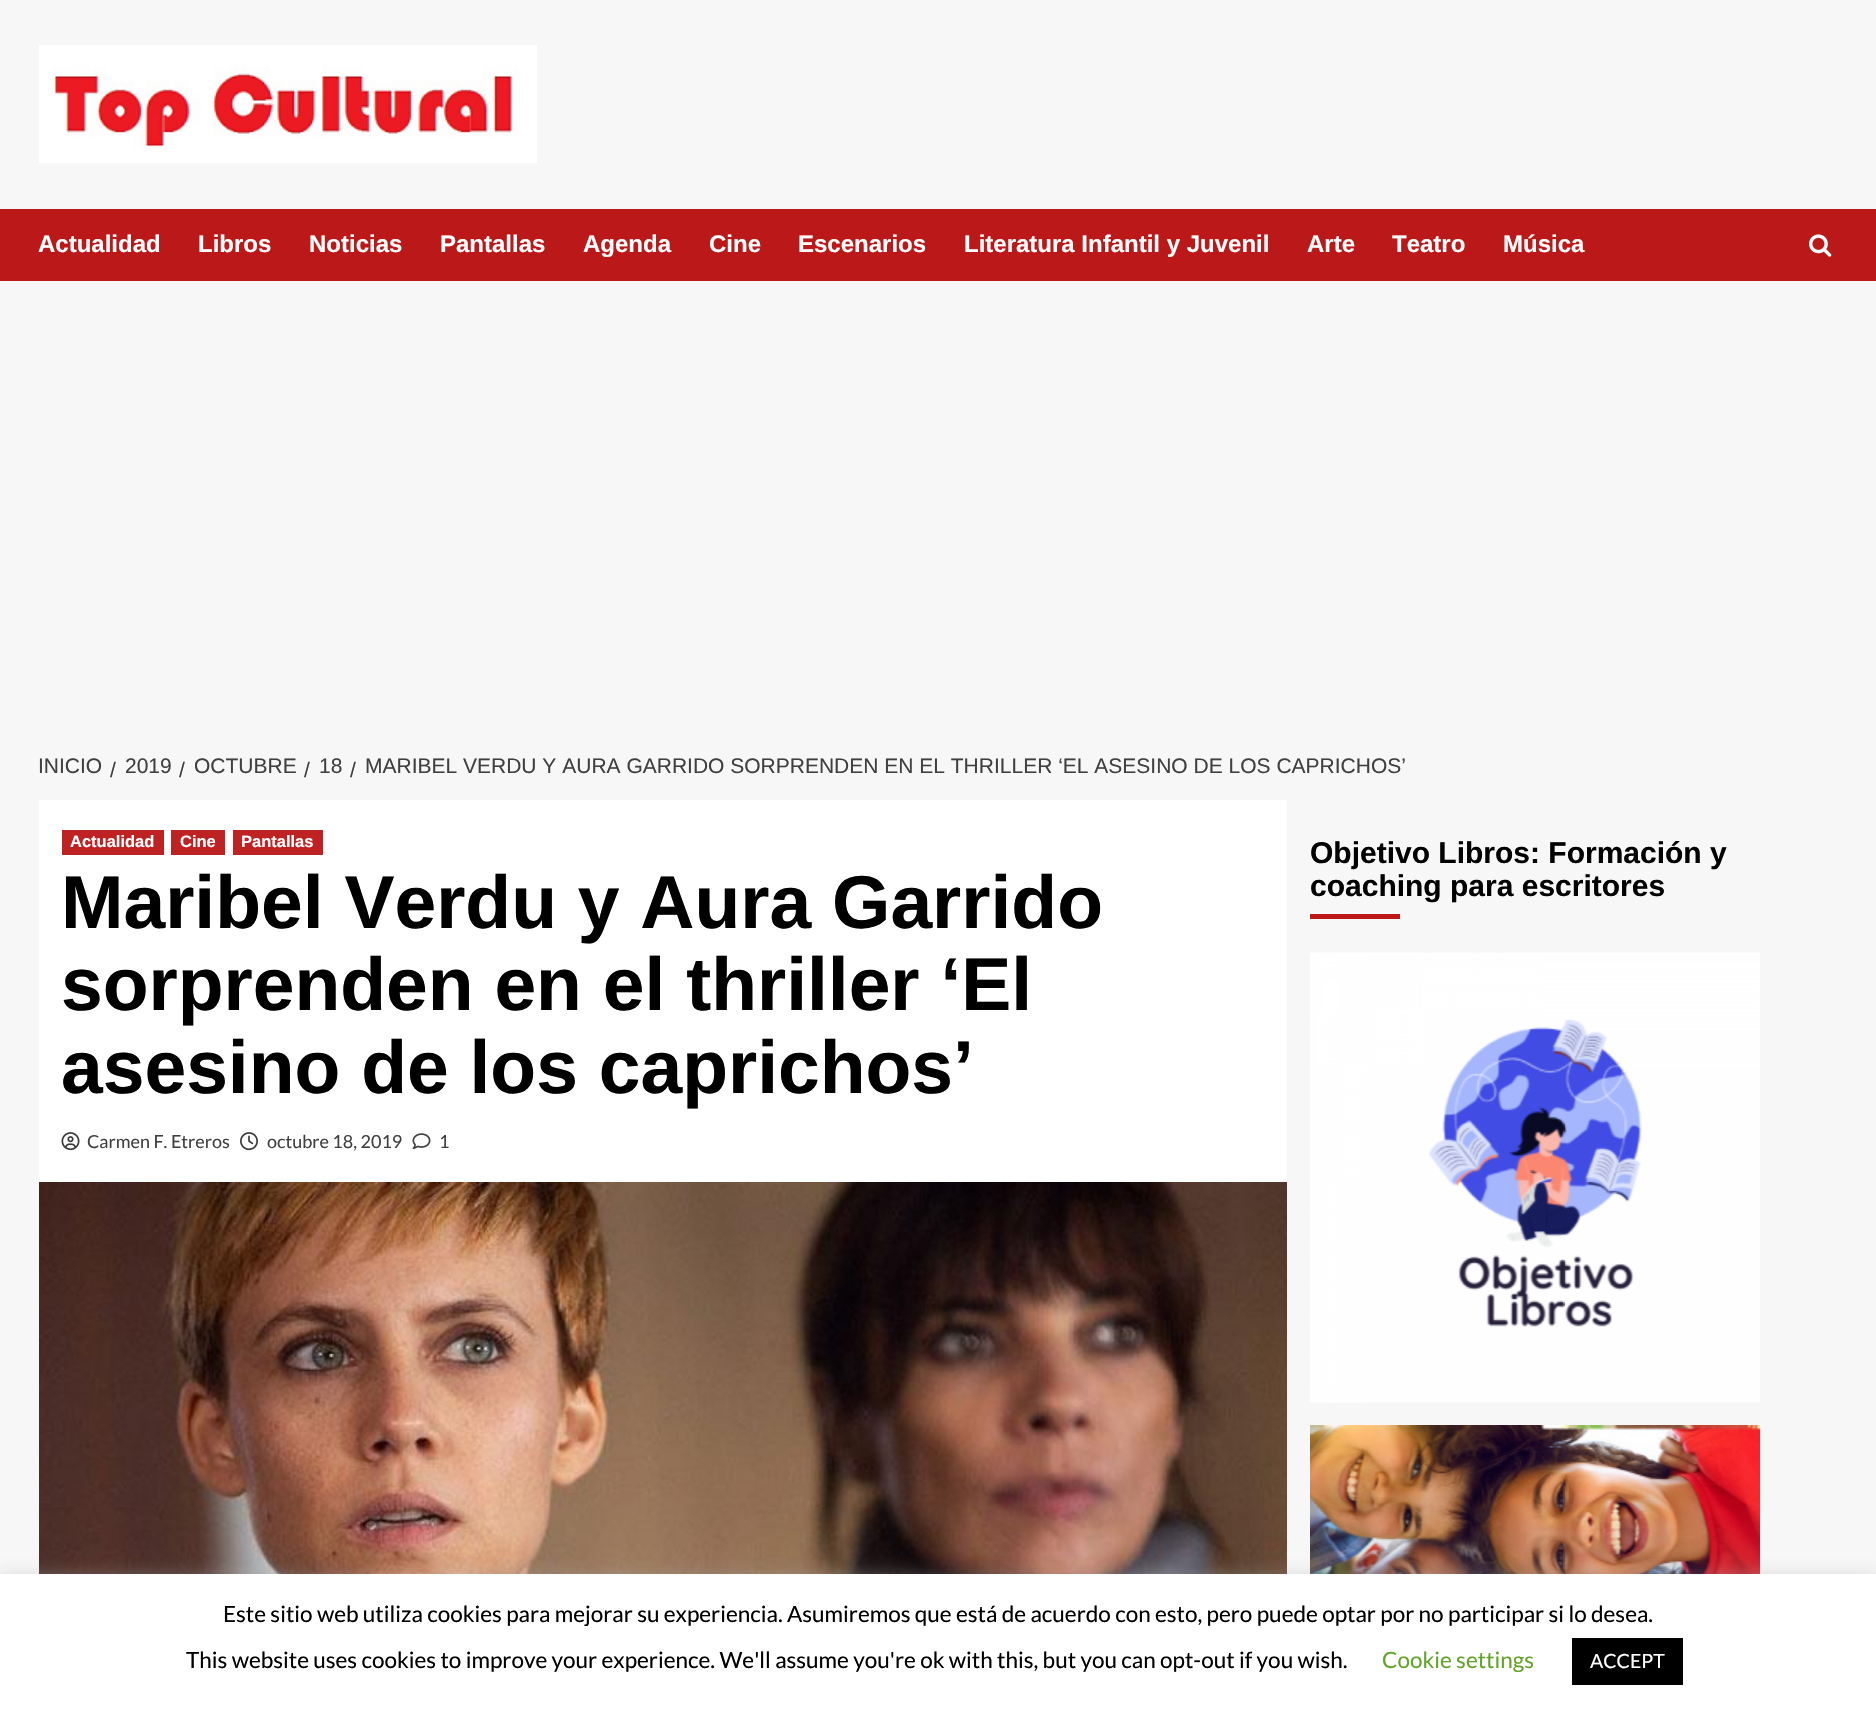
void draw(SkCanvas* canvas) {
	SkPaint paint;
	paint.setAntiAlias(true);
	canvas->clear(0xfff7f7f7);
	canvas->drawImageRect(SkImages::DeferredFromEncodedData(SkData::MakeFromFileName("img1.png")), SkRect::MakeXYWH(39, 45, 498, 119), SkSamplingOptions());
	paint.setColor(0xffbb1919);
	canvas->drawRect(SkRect::MakeXYWH(0, 209, 1876, 72), paint);
	SkFont f1(fontMgr->matchFamilyStyle("Liberation Sans", SkFontStyle::Bold()), 24);
	f1.setSubpixel(true);
	paint.setColor(0xffffffff);
	canvas->drawString("Actualidad", 38, 252, f1, paint);
	canvas->drawString("Libros", 198, 252, f1, paint);
	canvas->drawString("Noticias", 309, 252, f1, paint);
	canvas->drawString("Pantallas", 440, 252, f1, paint);
	canvas->drawString("Agenda", 583, 252, f1, paint);
	canvas->drawString("Cine", 709, 252, f1, paint);
	canvas->drawString("Escenarios", 798, 252, f1, paint);
	canvas->drawString("Literatura Infantil y Juvenil", 964, 252, f1, paint);
	canvas->drawString("Arte", 1307, 252, f1, paint);
	canvas->drawString("Teatro", 1392, 252, f1, paint);
	canvas->drawString("Música", 1503, 252, f1, paint);
	canvas->drawImageRect(SkImages::DeferredFromEncodedData(SkData::MakeFromFileName("img2.png")), SkRect::MakeXYWH(1809, 234, 23, 23), SkSamplingOptions());
	SkFont f2(fontMgr->matchFamilyStyle("Liberation Sans", SkFontStyle::Normal()), 21);
	f2.setSubpixel(true);
	paint.setColor(0xff404040);
	canvas->drawString("INICIO", 38, 773, f2, paint);
	canvas->drawString("/", 110, 777, f2, paint);
	canvas->drawString("2019", 125, 773, f2, paint);
	canvas->drawString("/", 179, 777, f2, paint);
	canvas->drawString("OCTUBRE", 194, 773, f2, paint);
	canvas->drawString("/", 304, 777, f2, paint);
	canvas->drawString("18", 319, 773, f2, paint);
	canvas->drawString("/", 350, 777, f2, paint);
	canvas->drawString("MARIBEL VERDU Y AURA GARRIDO SORPRENDEN EN EL THRILLER ‘EL ASESINO DE LOS CAPRICHOS’", 365, 773, f2, paint);
	paint.setColor(0xffffffff);
	canvas->drawRect(SkRect::MakeXYWH(39, 800, 1248, 382), paint);
	paint.setColor(0xffbe2222);
	canvas->drawRect(SkRect::MakeXYWH(62, 830, 102, 25), paint);
	SkFont f3(fontMgr->matchFamilyStyle("Liberation Sans", SkFontStyle::Bold()), 16.5);
	f3.setSubpixel(true);
	paint.setColor(0xffffffff);
	canvas->drawString("Actualidad", 70, 847, f3, paint);
	paint.setColor(0xffbe2222);
	canvas->drawRect(SkRect::MakeXYWH(171, 830, 54, 25), paint);
	paint.setColor(0xffffffff);
	canvas->drawString("Cine", 180, 847, f3, paint);
	paint.setColor(0xffbe2222);
	canvas->drawRect(SkRect::MakeXYWH(233, 830, 90, 25), paint);
	paint.setColor(0xffffffff);
	canvas->drawString("Pantallas", 241, 847, f3, paint);
	SkFont f4(fontMgr->matchFamilyStyle("Liberation Sans", SkFontStyle::Bold()), 75);
	f4.setSubpixel(true);
	paint.setColor(0xff000000);
	canvas->drawString("Maribel Verdu y Aura Garrido", 61, 928, f4, paint);
	canvas->drawString("sorprenden en el thriller ‘El", 61, 1010, f4, paint);
	canvas->drawString("asesino de los caprichos’", 61, 1093, f4, paint);
	canvas->drawImageRect(SkImages::DeferredFromEncodedData(SkData::MakeFromFileName("img3.png")), SkRect::MakeXYWH(61, 1132, 19, 19), SkSamplingOptions());
	SkFont f5(fontMgr->matchFamilyStyle("Lato", SkFontStyle::Normal()), 18);
	f5.setSubpixel(true);
	paint.setColor(0xff404040);
	canvas->drawString("Carmen F. Etreros", 87, 1148, f5, paint);
	canvas->drawImageRect(SkImages::DeferredFromEncodedData(SkData::MakeFromFileName("img4.png")), SkRect::MakeXYWH(240, 1132, 18, 19), SkSamplingOptions());
	canvas->drawString("octubre 18, 2019", 267, 1148, f5, paint);
	canvas->drawImageRect(SkImages::DeferredFromEncodedData(SkData::MakeFromFileName("img5.png")), SkRect::MakeXYWH(412, 1133, 19, 16), SkSamplingOptions());
	canvas->drawString("1", 439, 1148, f5, paint);
	canvas->drawImageRect(SkImages::DeferredFromEncodedData(SkData::MakeFromFileName("img6.png")), SkRect::MakeXYWH(39, 1182, 1248, 392), SkSamplingOptions());
	SkFont f6(fontMgr->matchFamilyStyle("Liberation Sans", SkFontStyle::Bold()), 30);
	f6.setSubpixel(true);
	paint.setColor(0xff000000);
	canvas->drawString("Objetivo Libros: Formación y", 1310, 863, f6, paint);
	canvas->drawString("coaching para escritores", 1310, 896, f6, paint);
	paint.setColor(0xffbb1919);
	canvas->drawRect(SkRect::MakeXYWH(1310, 914, 90, 5), paint);
	canvas->drawImageRect(SkImages::DeferredFromEncodedData(SkData::MakeFromFileName("img7.png")), SkRect::MakeXYWH(1310, 952, 450, 451), SkSamplingOptions());
	canvas->drawImageRect(SkImages::DeferredFromEncodedData(SkData::MakeFromFileName("img8.png")), SkRect::MakeXYWH(1310, 1425, 450, 149), SkSamplingOptions());
	paint.setColor(0x4dacabab);
	paint.setMaskFilter(SkMaskFilter::MakeBlur(kNormal_SkBlurStyle, 7.5));
	canvas->drawRect(SkRect::MakeXYWH(0, 1572, 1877, 137), paint);
	paint.setMaskFilter(nullptr);
	paint.setColor(0xffffffff);
	canvas->drawRect(SkRect::MakeXYWH(0, 1574, 1876, 136), paint);
	SkFont f7(fontMgr->matchFamilyStyle("Lato", SkFontStyle::Normal()), 22.5);
	f7.setSubpixel(true);
	paint.setColor(0xff000000);
	canvas->drawString("Este sitio web utiliza cookies para mejorar su experiencia. Asumiremos que está de acuerdo con esto, pero puede optar por no participar si lo desea.", 223, 1622, f7, paint);
	canvas->drawString("This website uses cookies to improve your experience. We'll assume you're ok with this, but you can opt-out if you wish.", 186, 1668, f7, paint);
	paint.setColor(0xff62a329);
	canvas->drawString("Cookie settings", 1382, 1668, f7, paint);
	paint.setColor(0xff000000);
	canvas->drawRect(SkRect::MakeXYWH(1572, 1638, 111, 47), paint);
	SkFont f8(fontMgr->matchFamilyStyle("Lato", SkFontStyle::Normal()), 19.5);
	f8.setSubpixel(true);
	paint.setColor(0xffffffff);
	canvas->drawString("ACCEPT", 1590, 1668, f8, paint);
}
